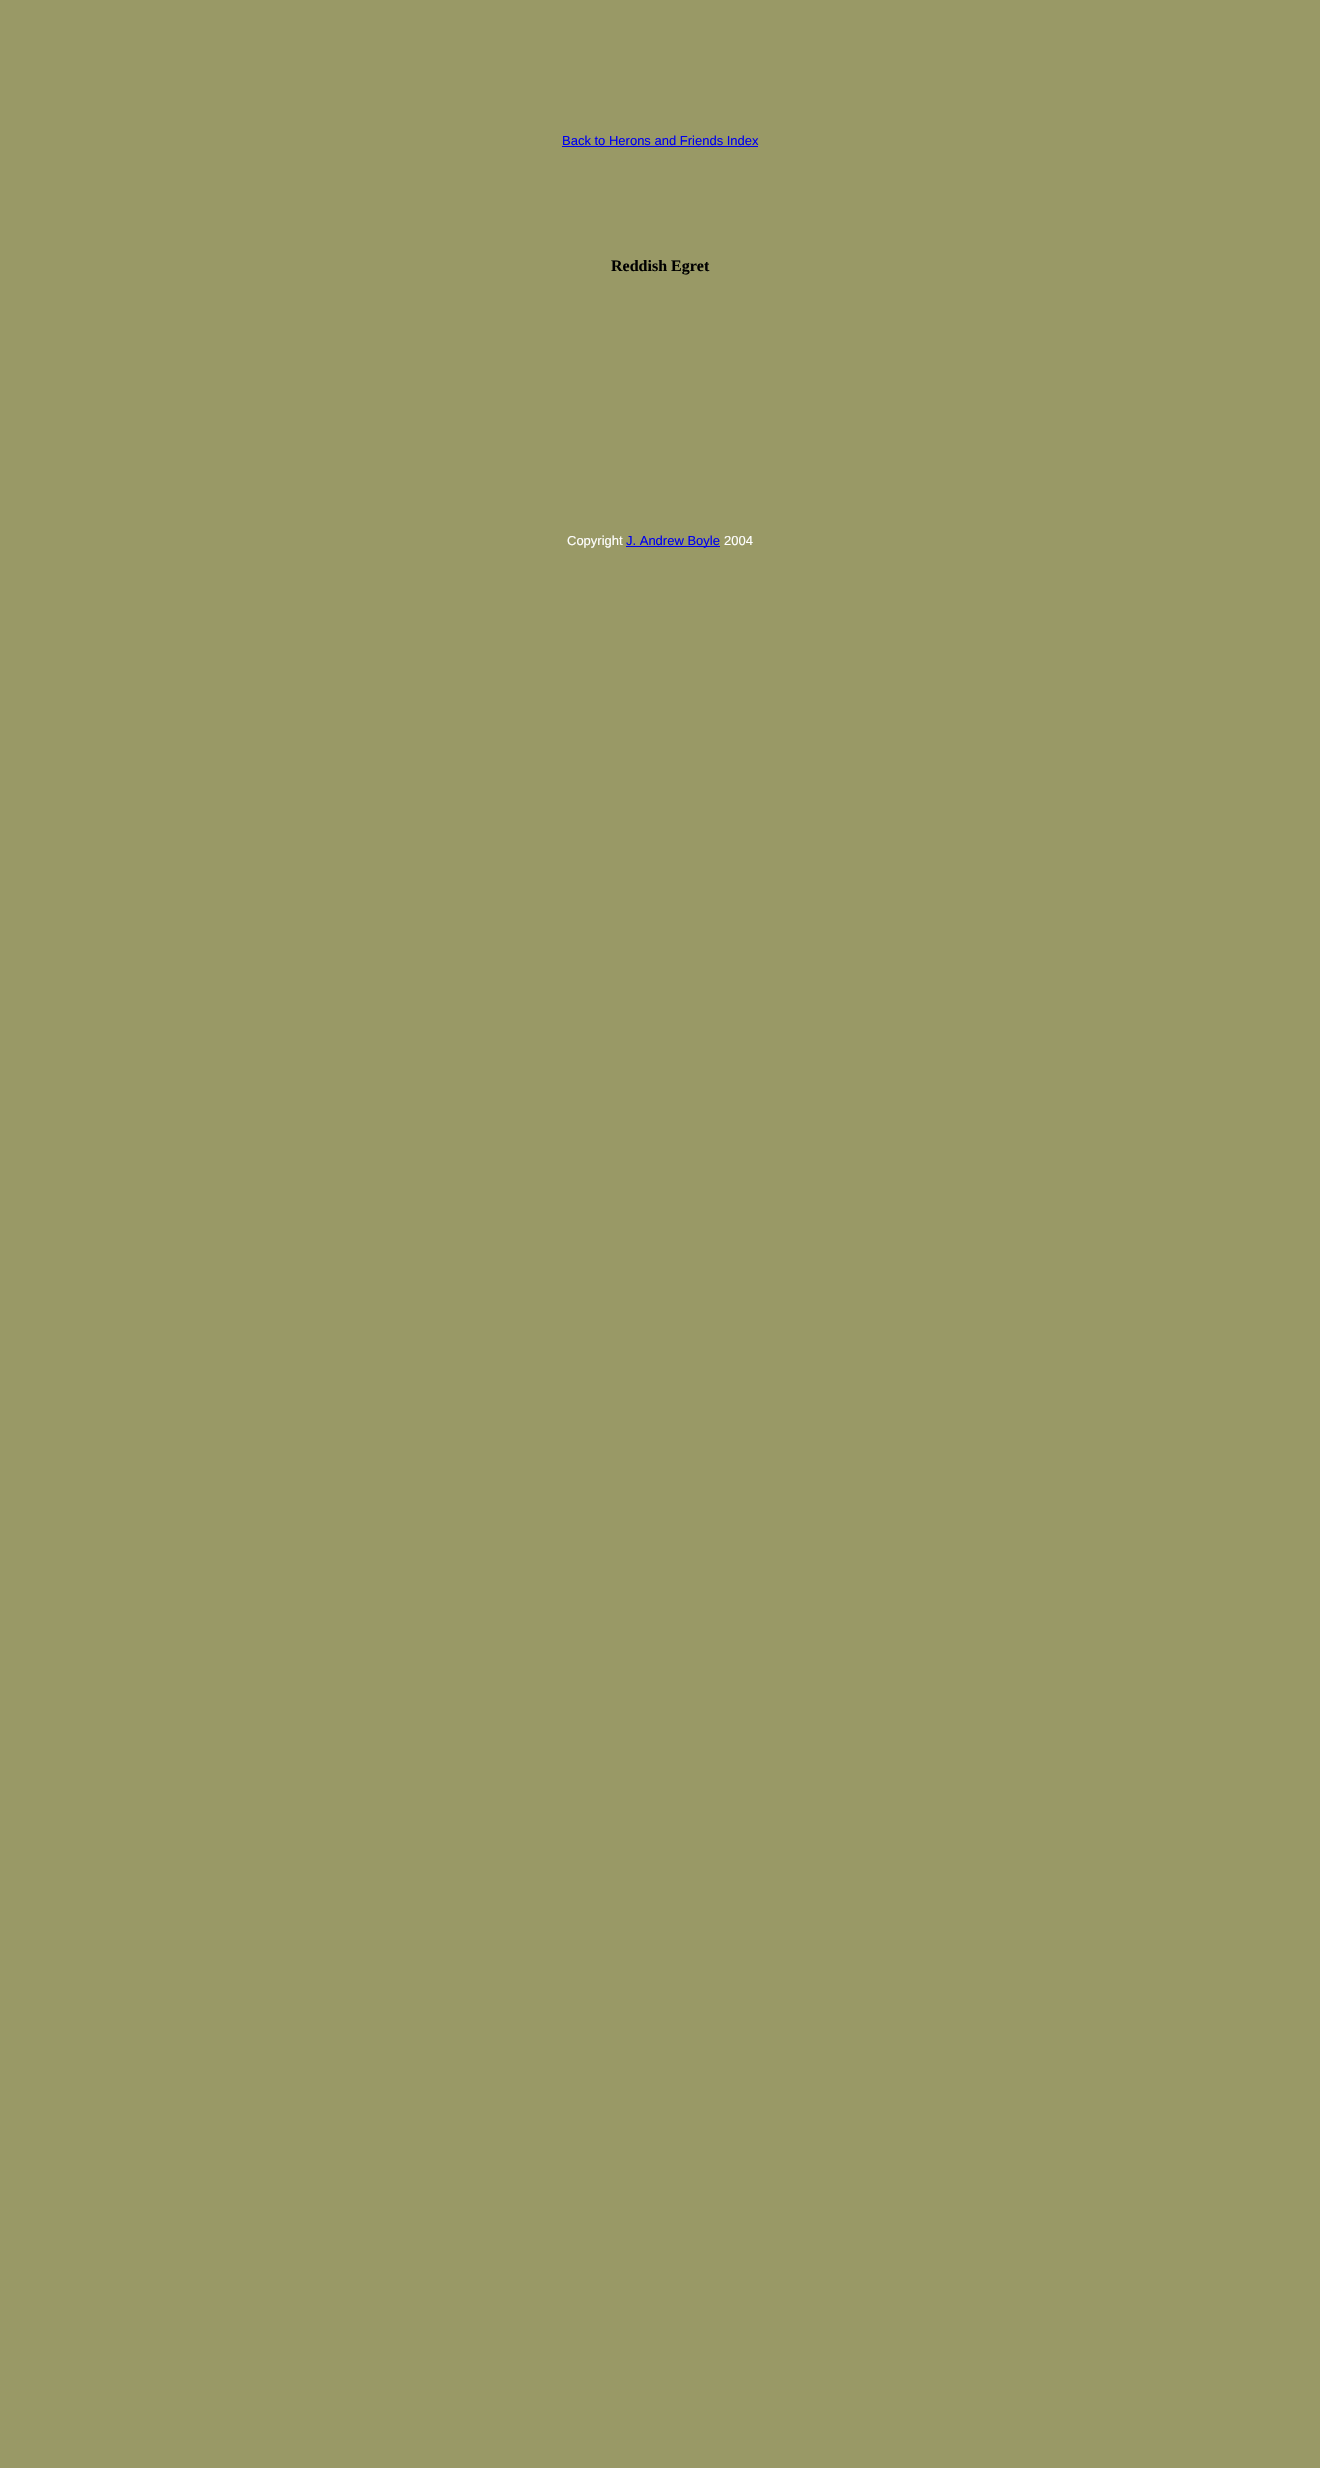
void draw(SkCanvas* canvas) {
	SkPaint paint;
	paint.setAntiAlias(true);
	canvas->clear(0xff999966);
	SkFont f1(fontMgr->matchFamilyStyle("Liberation Sans", SkFontStyle::Normal()), 13);
	f1.setSubpixel(true);
	paint.setColor(0xff0000ee);
	canvas->drawString("Back to Herons and Friends Index", 562, 145, f1, paint);
	canvas->drawRect(SkRect::MakeXYWH(562, 146, 196, 1), paint);
	SkFont f2(fontMgr->matchFamilyStyle("Liberation Serif", SkFontStyle::Bold()), 16);
	f2.setSubpixel(true);
	paint.setColor(0xff000000);
	canvas->drawString("Reddish Egret", 611, 271, f2, paint);
	paint.setColor(0xffffffff);
	canvas->drawString("Copyright", 567, 545, f1, paint);
	paint.setColor(0xff0000ee);
	canvas->drawRect(SkRect::MakeXYWH(626, 546, 94, 1), paint);
	canvas->drawString("J. Andrew Boyle", 626, 545, f1, paint);
	paint.setColor(0xffffffff);
	canvas->drawString("2004", 724, 545, f1, paint);
}
